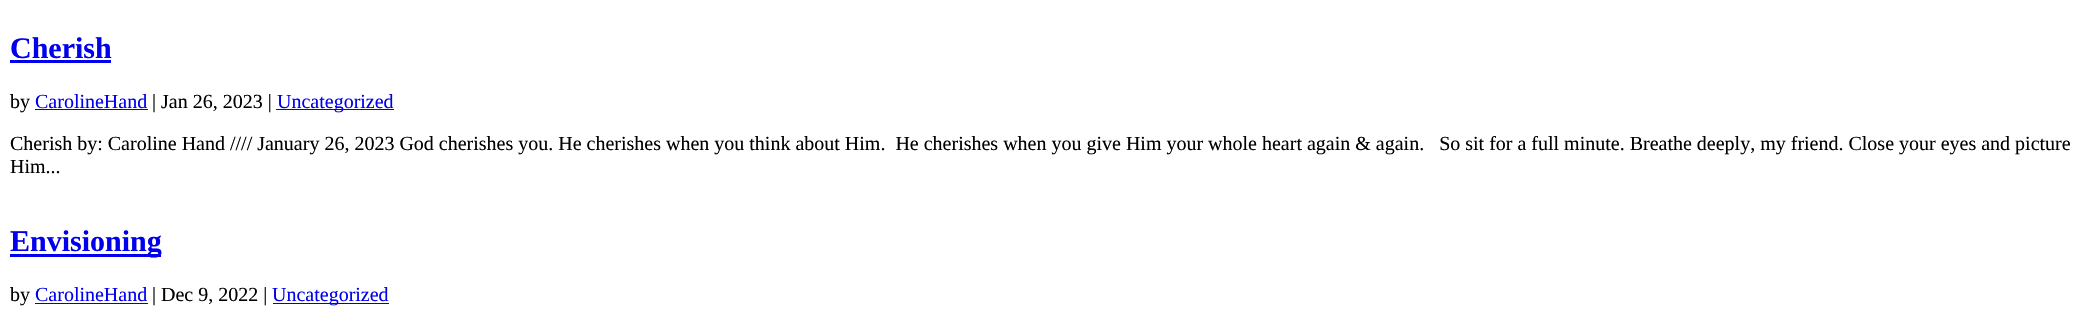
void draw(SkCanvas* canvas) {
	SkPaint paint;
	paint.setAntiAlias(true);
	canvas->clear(0xffffffff);
	SkFont f1(fontMgr->matchFamilyStyle("Liberation Serif", SkFontStyle::Bold()), 30);
	f1.setSubpixel(true);
	paint.setColor(0xff0000ee);
	canvas->drawString("Cherish", 10, 58, f1, paint);
	canvas->drawRect(SkRect::MakeXYWH(10, 60, 101, 3), paint);
	SkFont f2(fontMgr->matchFamilyStyle("Liberation Serif", SkFontStyle::Normal()), 20);
	f2.setSubpixel(true);
	paint.setColor(0xff000000);
	canvas->drawString("by", 10, 108, f2, paint);
	paint.setColor(0xff0000ee);
	canvas->drawString("CarolineHand", 35, 108, f2, paint);
	canvas->drawRect(SkRect::MakeXYWH(35, 109, 113, 1), paint);
	paint.setColor(0xff000000);
	canvas->drawString("| Jan 26, 2023 |", 152, 108, f2, paint);
	paint.setColor(0xff0000ee);
	canvas->drawRect(SkRect::MakeXYWH(276, 109, 118, 1), paint);
	canvas->drawString("Uncategorized", 277, 108, f2, paint);
	paint.setColor(0xff000000);
	canvas->drawString("Cherish by: Caroline Hand //// January 26, 2023 God cherishes you. He cherishes when you think about Him.  He cherishes when you give Him your whole heart again & again.   So sit for a full minute. Breathe deeply, my friend. Close your eyes and picture", 10, 150, f2, paint);
	canvas->drawString("Him...", 10, 173, f2, paint);
	paint.setColor(0xff0000ee);
	canvas->drawRect(SkRect::MakeXYWH(10, 254, 151, 3), paint);
	canvas->drawString("Envisioning", 10, 251, f1, paint);
	paint.setColor(0xff000000);
	canvas->drawString("by", 10, 301, f2, paint);
	paint.setColor(0xff0000ee);
	canvas->drawString("CarolineHand", 35, 301, f2, paint);
	canvas->drawRect(SkRect::MakeXYWH(35, 303, 113, 1), paint);
	paint.setColor(0xff000000);
	canvas->drawString("| Dec 9, 2022 |", 152, 301, f2, paint);
	paint.setColor(0xff0000ee);
	canvas->drawRect(SkRect::MakeXYWH(273, 303, 116, 1), paint);
	canvas->drawString("Uncategorized", 272, 301, f2, paint);
}
